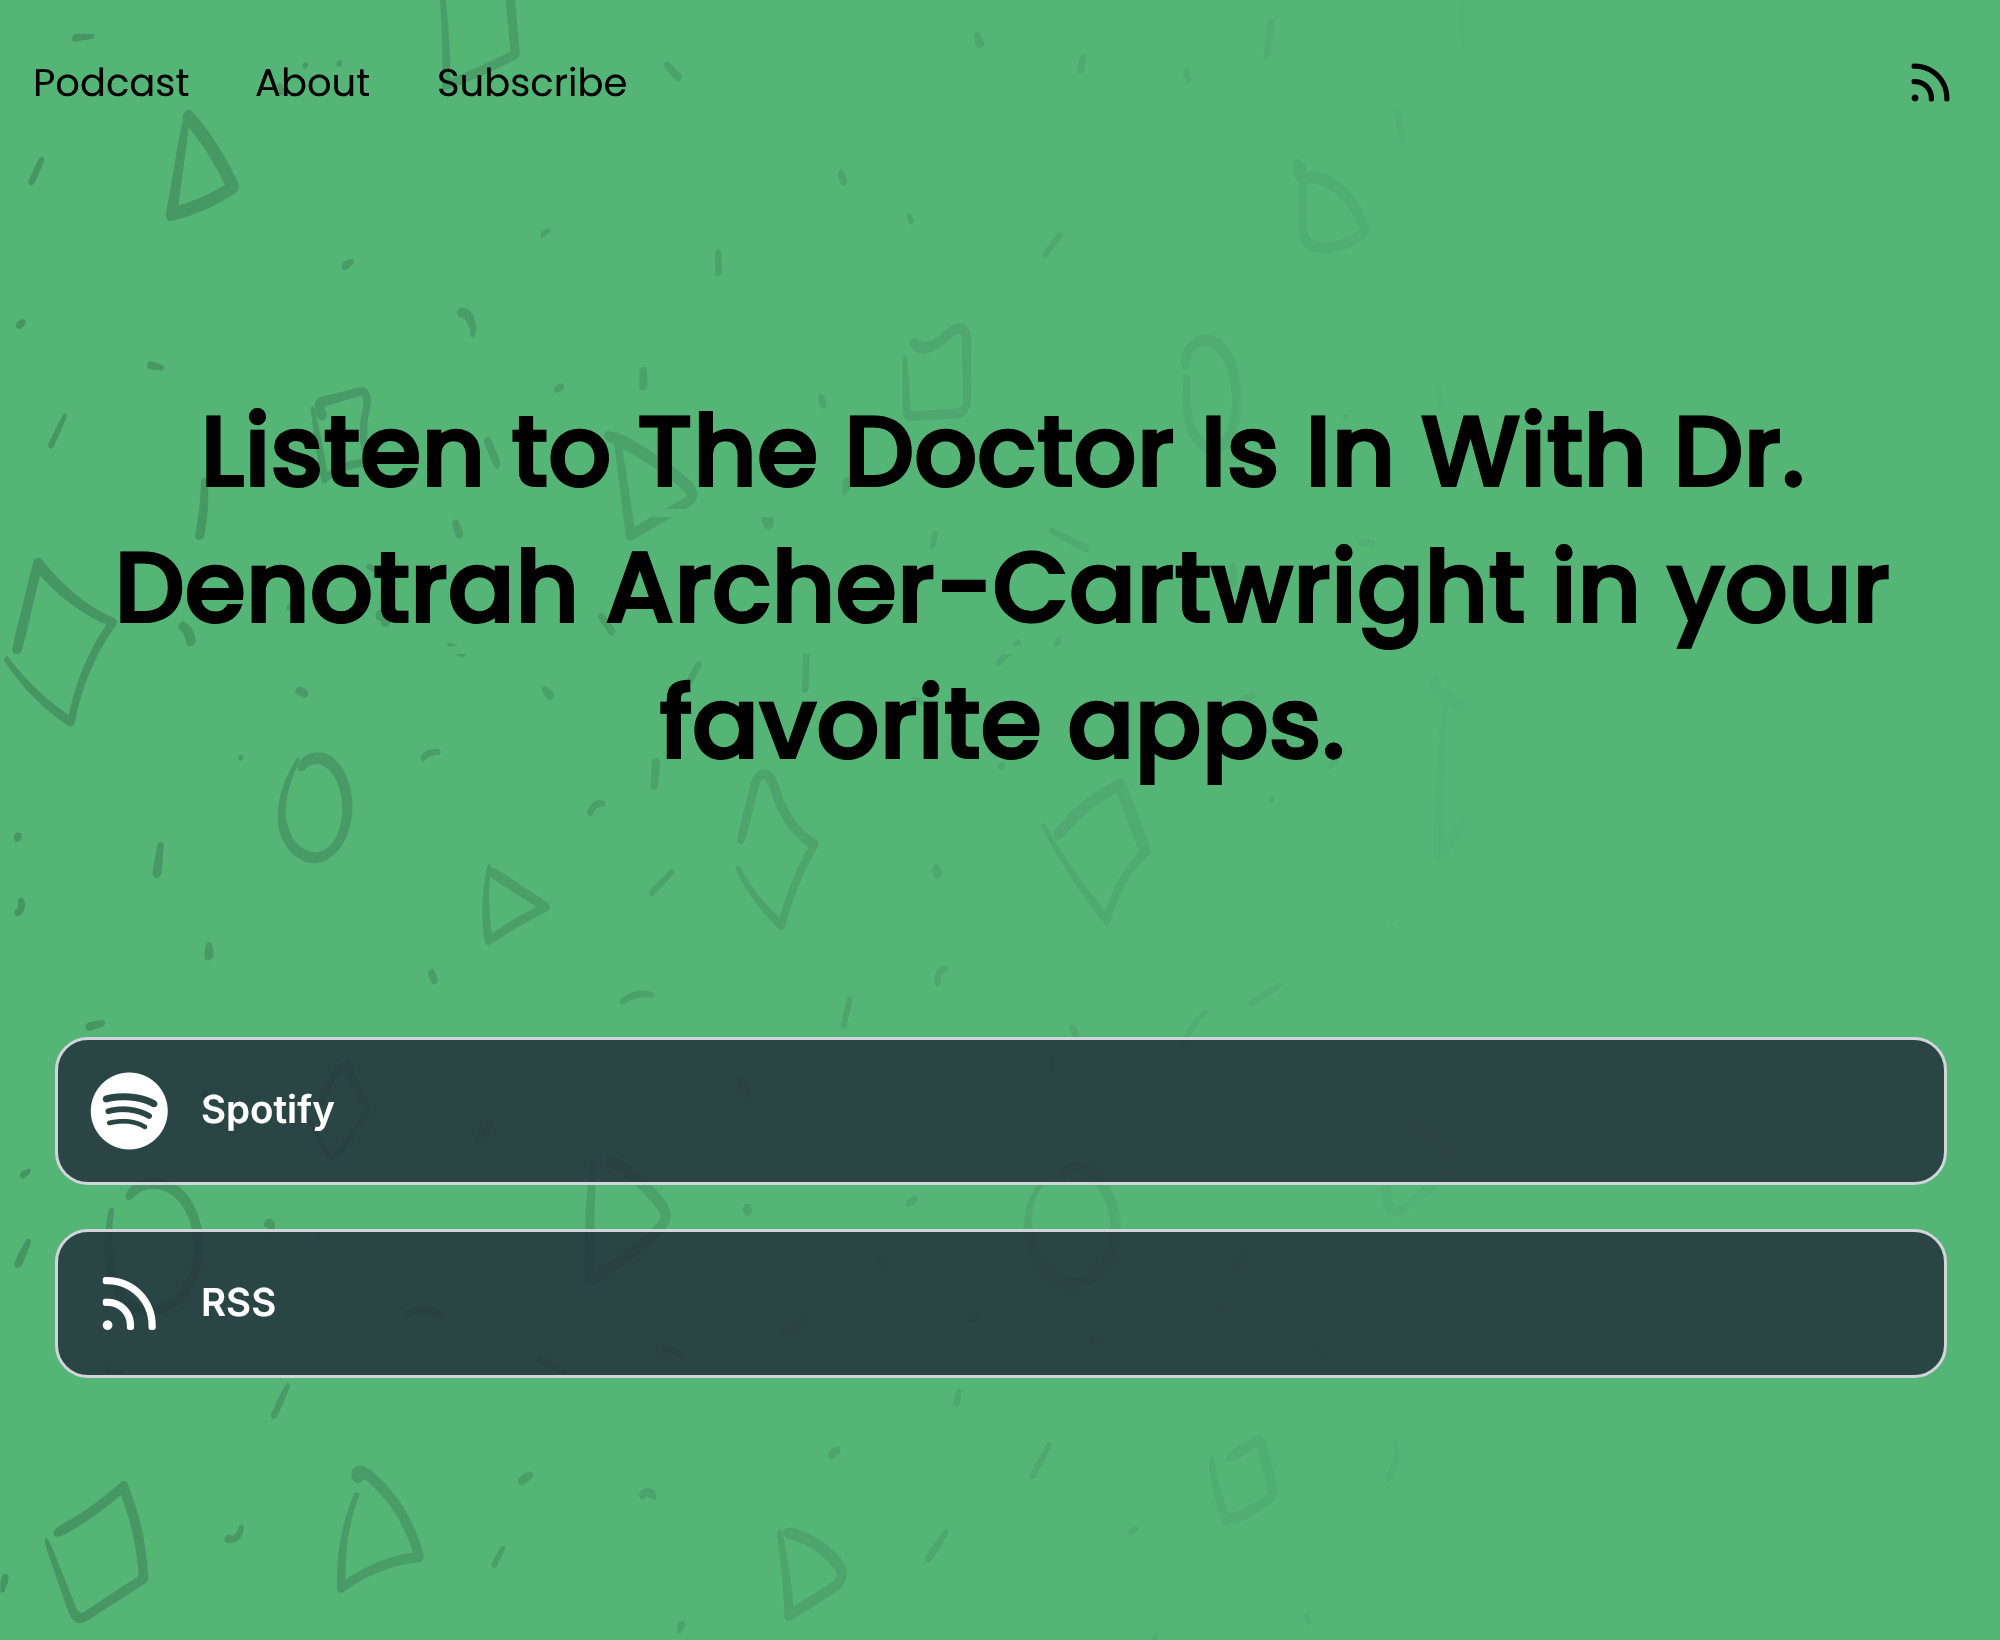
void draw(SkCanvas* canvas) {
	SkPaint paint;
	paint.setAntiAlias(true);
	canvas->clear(0xff54b577);
	canvas->drawImageRect(SkImages::DeferredFromEncodedData(SkData::MakeFromFileName("img1.png")), SkRect::MakeXYWH(0, 0, 1464, 1640), SkSamplingOptions());
	SkFont f1(fontMgr->matchFamilyStyle("Poppins", SkFontStyle::Normal()), 38.5);
	f1.setSubpixel(true);
	paint.setColor(0xff000000);
	canvas->drawString("Podcast", 33, 96, f1, paint);
	canvas->drawString("About", 255, 96, f1, paint);
	canvas->drawString("Subscribe", 437, 96, f1, paint);
	canvas->drawImageRect(SkImages::DeferredFromEncodedData(SkData::MakeFromFileName("img2.png")), SkRect::MakeXYWH(1911, 63, 39, 39), SkSamplingOptions());
	SkFont f2(fontMgr->matchFamilyStyle("Poppins", SkFontStyle::Bold()), 99);
	f2.setSubpixel(true);
	canvas->drawString("Listen to The Doctor Is In With Dr.", 199, 487, f2, paint);
	paint.setColor(0xff54b577);
	canvas->drawRect(SkRect::MakeXYWH(188, 646, 872, 8), paint);
	paint.setColor(0xff000000);
	canvas->drawString("Denotrah Archer-Cartwright in your", 113, 623, f2, paint);
	paint.setColor(0xff54b577);
	canvas->drawRect(SkRect::MakeXYWH(652, 509, 121, 8), paint);
	paint.setColor(0xff000000);
	canvas->drawString("favorite apps.", 658, 759, f2, paint);
	paint.setColor(0xcc1f2937);
	canvas->drawRoundRect(SkRect::MakeXYWH(56.5, 1038.5, 1889, 145), 31.5, 31.5, paint);
	paint.setStroke(true);
	paint.setStrokeWidth(3);
	paint.setColor(0xffd1d5db);
	canvas->drawRoundRect(SkRect::MakeXYWH(56.5, 1038.5, 1889, 145), 31.5, 31.5, paint);
	canvas->drawImageRect(SkImages::DeferredFromEncodedData(SkData::MakeFromFileName("img3.png")), SkRect::MakeXYWH(90, 1072, 78, 78), SkSamplingOptions());
	SkFont f3(fontMgr->matchFamilyStyle("Inter", SkFontStyle(600, SkFontStyle::kNormal_Width, SkFontStyle::kUpright_Slant)), 38.5);
	f3.setSubpixel(true);
	paint.setStroke(false);
	paint.setColor(0xffffffff);
	canvas->drawString("Spotify", 201, 1123, f3, paint);
	paint.setColor(0xcc1f2937);
	canvas->drawRoundRect(SkRect::MakeXYWH(56.5, 1230.5, 1889, 146), 31.5, 31.5, paint);
	paint.setStroke(true);
	paint.setColor(0xffd1d5db);
	canvas->drawRoundRect(SkRect::MakeXYWH(56.5, 1230.5, 1889, 146), 31.5, 31.5, paint);
	canvas->drawImageRect(SkImages::DeferredFromEncodedData(SkData::MakeFromFileName("img4.png")), SkRect::MakeXYWH(102, 1277, 54, 53), SkSamplingOptions());
	paint.setStroke(false);
	paint.setColor(0xffffffff);
	canvas->drawString("RSS", 201, 1316, f3, paint);
}
